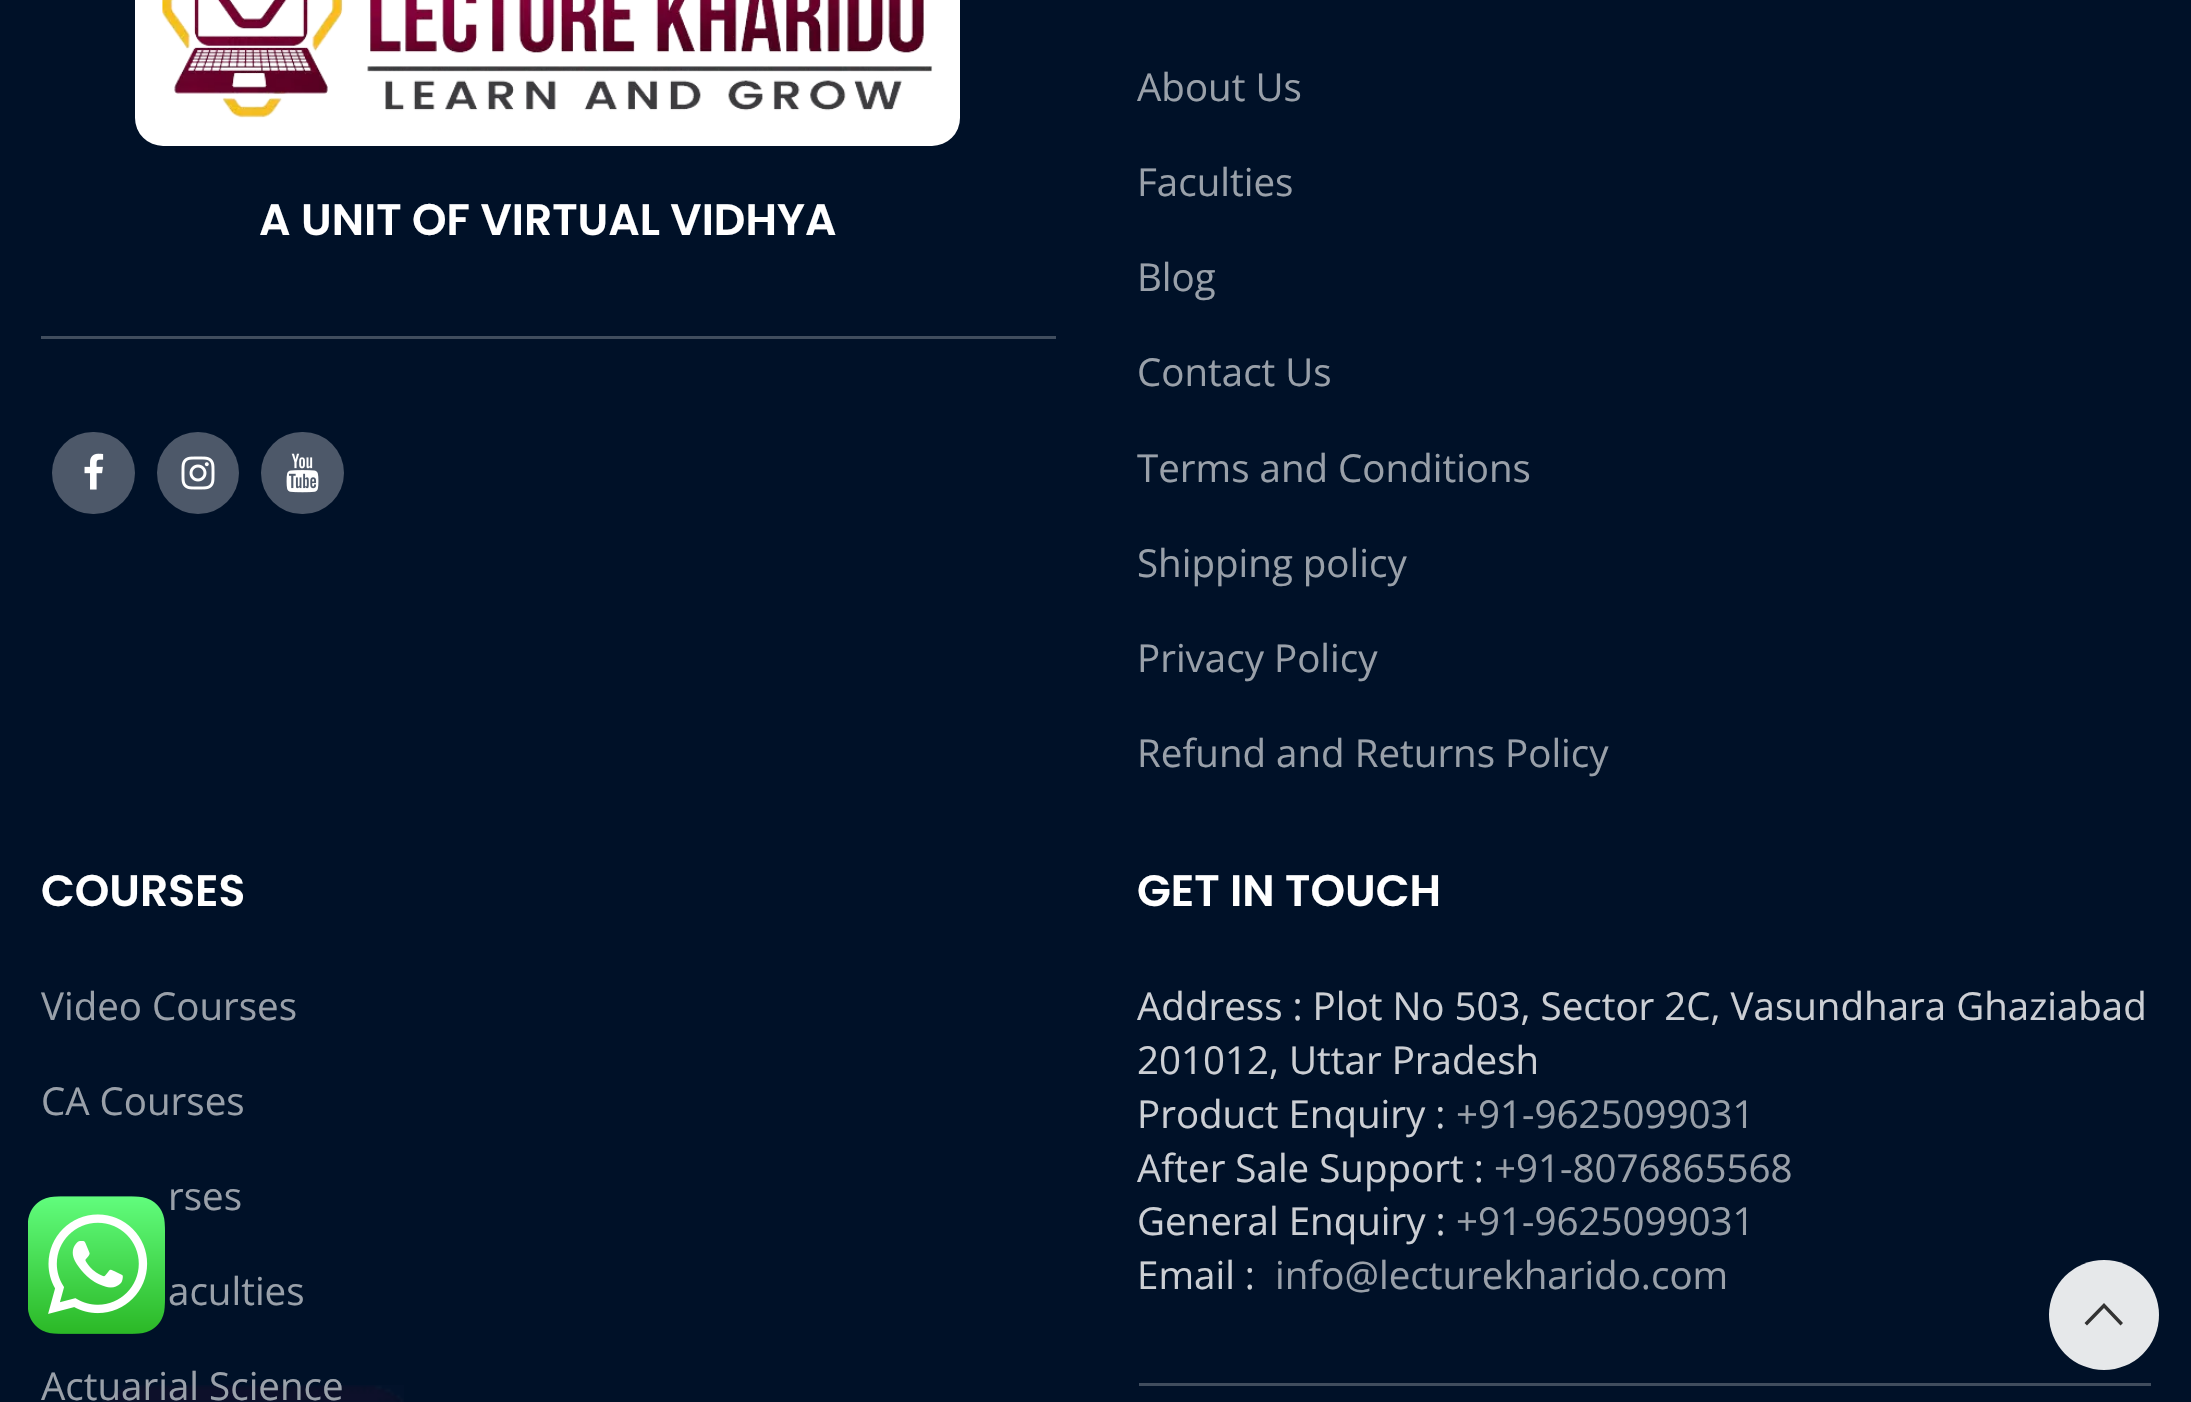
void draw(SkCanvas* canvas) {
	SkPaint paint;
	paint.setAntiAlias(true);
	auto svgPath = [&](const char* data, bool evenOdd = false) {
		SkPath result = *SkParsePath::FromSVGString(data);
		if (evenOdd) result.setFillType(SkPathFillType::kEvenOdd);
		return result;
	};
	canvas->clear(0xff001128);
	canvas->drawImageRect(SkImages::DeferredFromEncodedData(SkData::MakeFromFileName("img1.png")), SkRect::MakeXYWH(102, 1385, 302, 17), SkSamplingOptions());
	paint.setColor(0xff404d5e);
	canvas->drawRect(SkRect::MakeXYWH(41, 336, 1015, 3), paint);
	paint.setColor(0xffffffff);
	canvas->drawRoundRect(SkRect::MakeXYWH(135, -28, 825, 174), 28, 28, paint);
	canvas->drawImageRect(SkImages::DeferredFromEncodedData(SkData::MakeFromFileName("img2.png")), SkRect::MakeXYWH(162, 0, 771, 118), SkSamplingOptions());
	SkFont f1(fontMgr->matchFamilyStyle("Poppins", SkFontStyle(600, SkFontStyle::kNormal_Width, SkFontStyle::kUpright_Slant)), 44);
	f1.setSubpixel(true);
	canvas->drawString("A UNIT OF VIRTUAL VIDHYA", 259, 235, f1, paint);
	paint.setColor(0xff4d5869);
	canvas->drawRoundRect(SkRect::MakeXYWH(52, 432, 83, 82), 41, 41, paint);
	canvas->drawImageRect(SkImages::DeferredFromEncodedData(SkData::MakeFromFileName("img3.png")), SkRect::MakeXYWH(84, 453, 20, 37), SkSamplingOptions());
	canvas->drawCircle(198, 473, 41, paint);
	canvas->drawImageRect(SkImages::DeferredFromEncodedData(SkData::MakeFromFileName("img4.png")), SkRect::MakeXYWH(181, 456, 34, 34), SkSamplingOptions());
	canvas->drawRoundRect(SkRect::MakeXYWH(261, 432, 83, 82), 41, 41, paint);
	canvas->drawImageRect(SkImages::DeferredFromEncodedData(SkData::MakeFromFileName("img5.png")), SkRect::MakeXYWH(286, 453, 33, 40), SkSamplingOptions());
	SkFont f2(fontMgr->matchFamilyStyle("Open Sans", SkFontStyle::Normal()), 38.5);
	f2.setSubpixel(true);
	paint.setColor(0xff99a0a9);
	canvas->drawString("About Us", 1137, 101, f2, paint);
	canvas->drawString("Faculties", 1137, 196, f2, paint);
	canvas->drawString("Blog", 1137, 291, f2, paint);
	canvas->drawString("Contact Us", 1137, 386, f2, paint);
	canvas->drawString("Terms and Conditions", 1137, 482, f2, paint);
	canvas->drawString("Shipping policy", 1137, 577, f2, paint);
	canvas->drawString("Privacy Policy", 1137, 672, f2, paint);
	canvas->drawString("Refund and Returns Policy", 1137, 767, f2, paint);
	paint.setColor(0xffffffff);
	canvas->drawString("COURSES", 41, 906, f1, paint);
	paint.setColor(0xff99a0a9);
	canvas->drawString("Video Courses", 41, 1020, f2, paint);
	canvas->drawString("CA Courses", 41, 1115, f2, paint);
	canvas->drawString("rses", 168, 1210, f2, paint);
	canvas->drawString("aculties", 168, 1305, f2, paint);
	canvas->drawString("Actuarial Science", 41, 1400, f2, paint);
	paint.setColor(0xff404d5e);
	canvas->drawRect(SkRect::MakeXYWH(1139, 1383, 1012, 3), paint);
	paint.setColor(0xffffffff);
	canvas->drawString("GET IN TOUCH", 1137, 906, f1, paint);
	paint.setColor(0xffcccfd4);
	canvas->drawString("Address : Plot No 503, Sector 2C, Vasundhara Ghaziabad", 1137, 1020, f2, paint);
	canvas->drawString("201012, Uttar Pradesh", 1137, 1074, f2, paint);
	canvas->drawString("Product Enquiry :", 1137, 1128, f2, paint);
	paint.setColor(0xff99a0a9);
	canvas->drawString("+91-9625099031", 1456, 1128, f2, paint);
	paint.setColor(0xffcccfd4);
	canvas->drawString("After Sale Support :", 1137, 1182, f2, paint);
	paint.setColor(0xff99a0a9);
	canvas->drawString("+91-8076865568", 1494, 1182, f2, paint);
	paint.setColor(0xffcccfd4);
	canvas->drawString("General Enquiry :", 1137, 1235, f2, paint);
	paint.setColor(0xff99a0a9);
	canvas->drawString("+91-9625099031", 1456, 1235, f2, paint);
	paint.setColor(0xffcccfd4);
	canvas->drawString("Email :", 1137, 1289, f2, paint);
	paint.setColor(0xff99a0a9);
	canvas->drawString("info@lecturekharido.com", 1275, 1289, f2, paint);
	canvas->drawImageRect(SkImages::DeferredFromEncodedData(SkData::MakeFromFileName("img6.png")), SkRect::MakeXYWH(28, 1196, 137, 138), SkSamplingOptions());
	paint.setColor(0xe6ffffff);
	canvas->drawCircle(2104, 1315, 55, paint);
	paint.setColor(0xff333333);
	canvas->drawPath(svgPath("M2104 1303L2123 1323L2120.5 1325.5L2104 1308L2087 1325.5L2084.5 1323Z"), paint);
}
